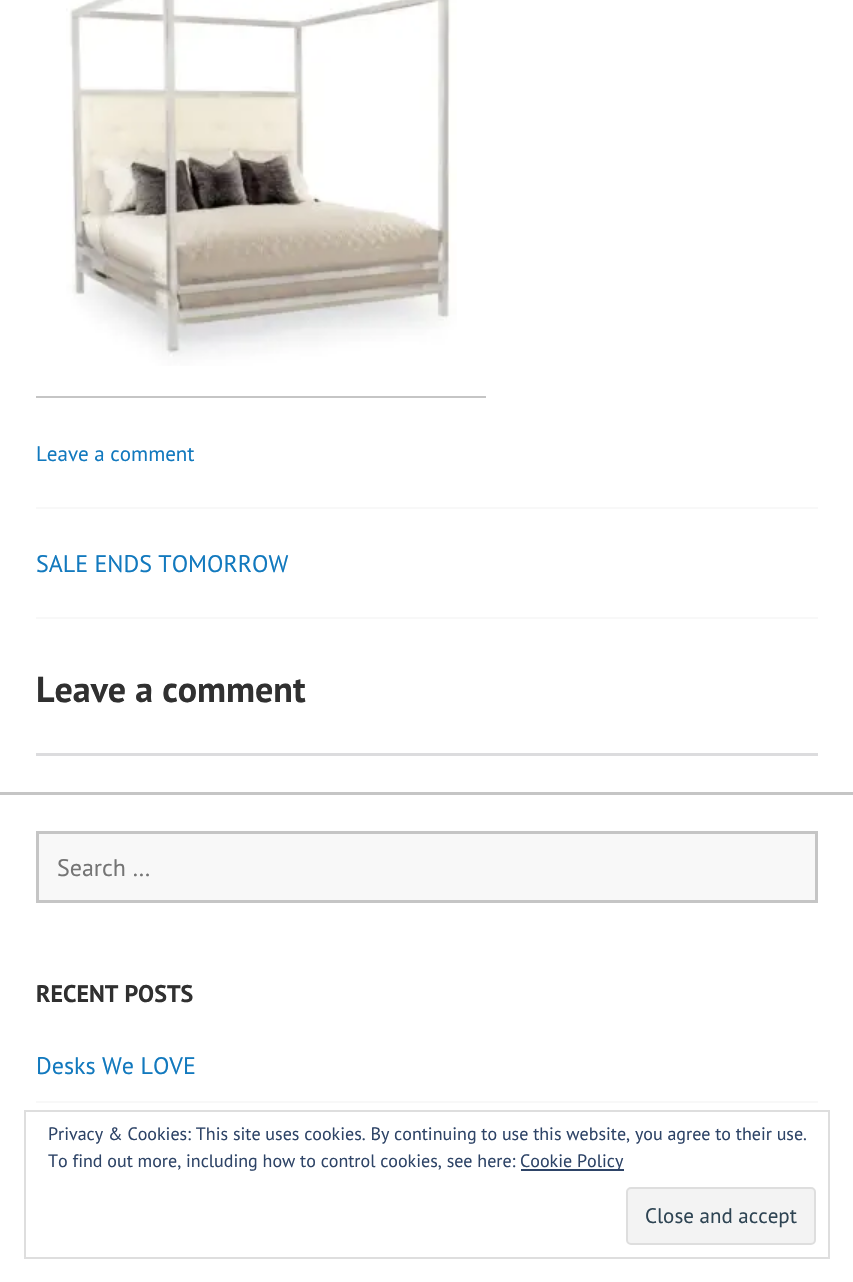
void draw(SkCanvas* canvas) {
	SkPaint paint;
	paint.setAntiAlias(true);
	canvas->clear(0xffffffff);
	canvas->drawImageRect(SkImages::DeferredFromEncodedData(SkData::MakeFromFileName("img1.png")), SkRect::MakeXYWH(66, 0, 391, 366), SkSamplingOptions());
	paint.setColor(0xffc5c5c5);
	canvas->drawRect(SkRect::MakeXYWH(36, 396, 450, 2), paint);
	SkFont f1(fontMgr->matchFamilyStyle("PT Sans", SkFontStyle::Normal()), 21);
	f1.setSubpixel(true);
	paint.setColor(0xff1279be);
	canvas->drawString("Leave a comment", 36, 461, f1, paint);
	paint.setColor(0xfff8f8f8);
	canvas->drawRect(SkRect::MakeXYWH(36, 507, 782, 2), paint);
	canvas->drawRect(SkRect::MakeXYWH(36, 617, 782, 2), paint);
	SkFont f2(fontMgr->matchFamilyStyle("PT Sans", SkFontStyle::Normal()), 24);
	f2.setSubpixel(true);
	paint.setColor(0xff1279be);
	canvas->drawString("SALE ENDS TOMORROW", 36, 572, f2, paint);
	SkFont f3(fontMgr->matchFamilyStyle("PT Sans", SkFontStyle::Bold()), 36);
	f3.setSubpixel(true);
	paint.setColor(0xff303030);
	canvas->drawString("Leave a comment", 36, 702, f3, paint);
	paint.setColor(0xffdcdcde);
	canvas->drawRect(SkRect::MakeXYWH(36, 753, 782, 3), paint);
	paint.setColor(0xffc5c5c5);
	canvas->drawRect(SkRect::MakeXYWH(0, 792, 853, 3), paint);
	paint.setColor(0xfff8f8f8);
	canvas->drawRect(SkRect::MakeXYWH(37.5, 832.5, 779, 69), paint);
	paint.setStroke(true);
	paint.setStrokeWidth(3);
	paint.setColor(0xffc5c5c5);
	canvas->drawRect(SkRect::MakeXYWH(37.5, 832.5, 779, 69), paint);
	paint.setStroke(false);
	paint.setColor(0xff757575);
	canvas->drawString("Search …", 57, 876, f2, paint);
	SkFont f4(fontMgr->matchFamilyStyle("PT Sans", SkFontStyle::Bold()), 24);
	f4.setSubpixel(true);
	paint.setColor(0xff303030);
	canvas->drawString("RECENT POSTS", 36, 1002, f4, paint);
	paint.setColor(0xff1279be);
	canvas->drawString("Desks We LOVE", 36, 1074, f2, paint);
	paint.setColor(0xfff8f8f8);
	canvas->drawRect(SkRect::MakeXYWH(36, 1101, 782, 2), paint);
	paint.setStroke(true);
	paint.setStrokeWidth(2);
	paint.setColor(0xffdedede);
	canvas->drawRect(SkRect::MakeXYWH(25, 1111, 804, 147), paint);
	SkFont f5(fontMgr->matchFamilyStyle("PT Sans", SkFontStyle::Normal()), 18);
	f5.setSubpixel(true);
	paint.setStroke(false);
	paint.setColor(0xff2e4467);
	canvas->drawString("Privacy & Cookies: This site uses cookies. By continuing to use this website, you agree to their use.", 48, 1140, f5, paint);
	canvas->drawString("To find out more, including how to control cookies, see here:", 48, 1167, f5, paint);
	canvas->drawRect(SkRect::MakeXYWH(521, 1169, 103, 2), paint);
	canvas->drawString("Cookie Policy", 520, 1167, f5, paint);
	paint.setColor(0xfff3f3f3);
	canvas->drawRoundRect(SkRect::MakeXYWH(627, 1188, 188, 56), 4, 4, paint);
	paint.setStroke(true);
	paint.setColor(0xffdedede);
	canvas->drawRoundRect(SkRect::MakeXYWH(627, 1188, 188, 56), 4, 4, paint);
	paint.setStroke(false);
	paint.setColor(0xff2e4453);
	canvas->drawString("Close and accept", 645, 1223, f1, paint);
}
